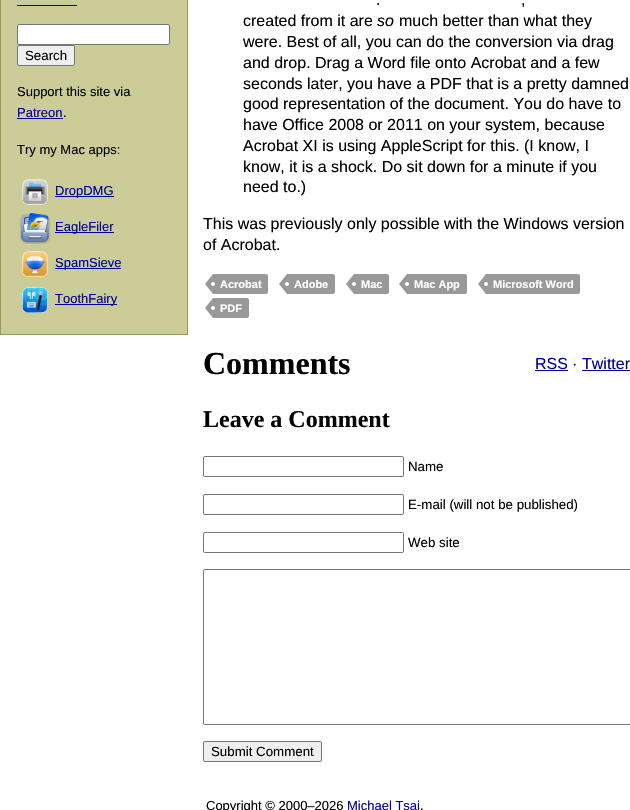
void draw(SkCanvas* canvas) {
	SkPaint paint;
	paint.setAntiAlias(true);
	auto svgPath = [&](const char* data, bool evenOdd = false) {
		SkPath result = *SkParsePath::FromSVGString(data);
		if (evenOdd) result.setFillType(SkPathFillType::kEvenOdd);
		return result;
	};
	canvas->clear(0xffffffff);
	paint.setColor(0xffcccc99);
	canvas->drawRect(SkRect::MakeXYWH(0.5, -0.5, 187, 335), paint);
	paint.setStroke(true);
	paint.setStrokeWidth(1);
	paint.setColor(0xff999955);
	canvas->drawRect(SkRect::MakeXYWH(0.5, -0.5, 187, 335), paint);
	paint.setStroke(false);
	paint.setColor(0xff000099);
	canvas->drawRect(SkRect::MakeXYWH(17, 5, 60, 1), paint);
	paint.setColor(0xffffffff);
	canvas->drawRoundRect(SkRect::MakeXYWH(17.5, 24.5, 152, 20), 1.5, 1.5, paint);
	paint.setStroke(true);
	paint.setColor(0xff767676);
	canvas->drawRoundRect(SkRect::MakeXYWH(17.5, 24.5, 152, 20), 1.5, 1.5, paint);
	paint.setStroke(false);
	paint.setColor(0xffefefef);
	canvas->drawRoundRect(SkRect::MakeXYWH(17.5, 45.5, 57, 20), 1.5, 1.5, paint);
	paint.setStroke(true);
	paint.setColor(0xff767676);
	canvas->drawRoundRect(SkRect::MakeXYWH(17.5, 45.5, 57, 20), 1.5, 1.5, paint);
	SkFont f1(fontMgr->matchFamilyStyle("Liberation Sans", SkFontStyle::Normal()), 13.3);
	f1.setSubpixel(true);
	paint.setStroke(false);
	paint.setColor(0xff000000);
	canvas->drawString("Search", 25, 60, f1, paint);
	SkFont f2(fontMgr->matchFamilyStyle("Liberation Sans", SkFontStyle::Normal()), 13);
	f2.setSubpixel(true);
	canvas->drawString("Support this site via", 17, 96, f2, paint);
	paint.setColor(0xff000099);
	canvas->drawString("Patreon", 17, 117, f2, paint);
	canvas->drawRect(SkRect::MakeXYWH(17, 118, 46, 1), paint);
	paint.setColor(0xff000000);
	canvas->drawString(".", 63, 117, f2, paint);
	canvas->drawString("Try my Mac apps:", 17, 154, f2, paint);
	canvas->drawImageRect(SkImages::DeferredFromEncodedData(SkData::MakeFromFileName("img1.png")), SkRect::MakeXYWH(22, 179, 26, 26), SkSamplingOptions());
	paint.setColor(0xff000099);
	canvas->drawRect(SkRect::MakeXYWH(55, 196, 59, 1), paint);
	canvas->drawString("DropDMG", 55, 195, f2, paint);
	canvas->drawImageRect(SkImages::DeferredFromEncodedData(SkData::MakeFromFileName("img2.png")), SkRect::MakeXYWH(19, 213, 32, 31), SkSamplingOptions());
	canvas->drawRect(SkRect::MakeXYWH(55, 232, 59, 1), paint);
	canvas->drawString("EagleFiler", 55, 231, f2, paint);
	canvas->drawImageRect(SkImages::DeferredFromEncodedData(SkData::MakeFromFileName("img3.png")), SkRect::MakeXYWH(22, 251, 26, 26), SkSamplingOptions());
	canvas->drawRect(SkRect::MakeXYWH(55, 268, 66, 1), paint);
	canvas->drawString("SpamSieve", 55, 267, f2, paint);
	canvas->drawImageRect(SkImages::DeferredFromEncodedData(SkData::MakeFromFileName("img4.png")), SkRect::MakeXYWH(22, 287, 26, 26), SkSamplingOptions());
	canvas->drawRect(SkRect::MakeXYWH(55, 304, 62, 1), paint);
	canvas->drawString("ToothFairy", 55, 303, f2, paint);
	SkFont f3(fontMgr->matchFamilyStyle("Liberation Sans", SkFontStyle::Normal()), 16);
	f3.setSubpixel(true);
	paint.setColor(0xff000000);
	canvas->drawString(".", 376, 5, f3, paint);
	canvas->drawString(",", 521, 5, f3, paint);
	canvas->drawString("created from it are", 243, 26, f3, paint);
	SkFont f4(fontMgr->matchFamilyStyle("Liberation Sans", SkFontStyle::Italic()), 16);
	f4.setSubpixel(true);
	canvas->drawString("so", 377, 26, f4, paint);
	canvas->drawString("much better than what they", 399, 26, f3, paint);
	canvas->drawString("were. Best of all, you can do the conversion via drag", 243, 47, f3, paint);
	canvas->drawString("and drop. Drag a Word file onto Acrobat and a few", 243, 68, f3, paint);
	canvas->drawString("seconds later, you have a PDF that is a pretty damned", 243, 89, f3, paint);
	canvas->drawString("good representation of the document. You do have to", 243, 109, f3, paint);
	canvas->drawString("have Office 2008 or 2011 on your system, because", 243, 130, f3, paint);
	canvas->drawString("Acrobat XI is using AppleScript for this. (I know, I", 243, 151, f3, paint);
	canvas->drawString("know, it is a shock. Do sit down for a minute if you", 243, 172, f3, paint);
	canvas->drawString("need to.)", 243, 192, f3, paint);
	canvas->drawString("This was previously only possible with the Windows version", 203, 229, f3, paint);
	canvas->drawString("of Acrobat.", 203, 250, f3, paint);
	paint.setColor(0xff999999);
	canvas->drawPath(svgPath("M213 274H266C267 274 268 275 268 276V292C268 293 267 294 266 294H213Z"), paint);
	canvas->drawPath(svgPath("M213 274V294L205 284Z"), paint);
	SkFont f5(fontMgr->matchFamilyStyle("Liberation Sans", SkFontStyle::Bold()), 11);
	f5.setSubpixel(true);
	paint.setColor(0xffffffff);
	canvas->drawString("Acrobat", 220, 288, f5, paint);
	canvas->drawCircle(213, 284, 2, paint);
	paint.setColor(0xff999999);
	canvas->drawPath(svgPath("M287 274H333C334 274 335 275 335 276V292C335 293 334 294 333 294H287Z"), paint);
	canvas->drawPath(svgPath("M287 274V294L279 284Z"), paint);
	paint.setColor(0xffffffff);
	canvas->drawString("Adobe", 294, 288, f5, paint);
	canvas->drawCircle(287, 284, 2, paint);
	paint.setColor(0xff999999);
	canvas->drawPath(svgPath("M354 274H387C388 274 389 275 389 276V292C389 293 388 294 387 294H354Z"), paint);
	canvas->drawPath(svgPath("M354 274V294L346 284Z"), paint);
	paint.setColor(0xffffffff);
	canvas->drawString("Mac", 361, 288, f5, paint);
	canvas->drawCircle(354, 284, 2, paint);
	paint.setColor(0xff999999);
	canvas->drawPath(svgPath("M407 274H465C466 274 467 275 467 276V292C467 293 466 294 465 294H407Z"), paint);
	canvas->drawPath(svgPath("M407 274V294L399 284Z"), paint);
	paint.setColor(0xffffffff);
	canvas->drawString("Mac App", 414, 288, f5, paint);
	canvas->drawCircle(407, 284, 2, paint);
	paint.setColor(0xff999999);
	canvas->drawPath(svgPath("M486 274H578C579 274 580 275 580 276V292C580 293 579 294 578 294H486Z"), paint);
	canvas->drawPath(svgPath("M486 274V294L478 284Z"), paint);
	paint.setColor(0xffffffff);
	canvas->drawString("Microsoft Word", 493, 288, f5, paint);
	canvas->drawCircle(486, 284, 2, paint);
	paint.setColor(0xff999999);
	canvas->drawPath(svgPath("M213 298H247C248 298 249 299 249 300V316C249 317 248 318 247 318H213Z"), paint);
	canvas->drawPath(svgPath("M213 298V318L205 308Z"), paint);
	paint.setColor(0xffffffff);
	canvas->drawString("PDF", 220, 312, f5, paint);
	canvas->drawCircle(213, 308, 2, paint);
	SkFont f6(fontMgr->matchFamilyStyle("Liberation Serif", SkFontStyle::Bold()), 32);
	f6.setSubpixel(true);
	paint.setColor(0xff000000);
	canvas->drawString("Comments", 203, 374, f6, paint);
	paint.setColor(0xff000099);
	canvas->drawString("RSS", 535, 369, f3, paint);
	canvas->drawRect(SkRect::MakeXYWH(535, 370, 33, 1), paint);
	paint.setColor(0xff000000);
	canvas->drawString("·", 572, 369, f3, paint);
	paint.setColor(0xff000099);
	canvas->drawString("Twitter", 582, 369, f3, paint);
	canvas->drawRect(SkRect::MakeXYWH(582, 370, 48, 1), paint);
	SkFont f7(fontMgr->matchFamilyStyle("Liberation Serif", SkFontStyle::Bold()), 24);
	f7.setSubpixel(true);
	paint.setColor(0xff000000);
	canvas->drawString("Leave a Comment", 203, 427, f7, paint);
	paint.setStroke(true);
	paint.setColor(0xff767676);
	canvas->drawRoundRect(SkRect::MakeXYWH(203.5, 456.5, 200, 20), 1.5, 1.5, paint);
	paint.setStroke(false);
	paint.setColor(0xff000000);
	canvas->drawString("Name", 408, 471, f1, paint);
	paint.setStroke(true);
	paint.setColor(0xff767676);
	canvas->drawRoundRect(SkRect::MakeXYWH(203.5, 494.5, 200, 20), 1.5, 1.5, paint);
	paint.setStroke(false);
	paint.setColor(0xff000000);
	canvas->drawString("E-mail (will not be published)", 408, 509, f1, paint);
	paint.setStroke(true);
	paint.setColor(0xff767676);
	canvas->drawRoundRect(SkRect::MakeXYWH(203.5, 532.5, 200, 20), 1.5, 1.5, paint);
	paint.setStroke(false);
	paint.setColor(0xff000000);
	canvas->drawString("Web site", 408, 547, f1, paint);
	paint.setStroke(true);
	paint.setColor(0xff767676);
	canvas->drawRoundRect(SkRect::MakeXYWH(203.5, 569.5, 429, 155), 1.5, 1.5, paint);
	paint.setStroke(false);
	paint.setColor(0xffefefef);
	canvas->drawRoundRect(SkRect::MakeXYWH(203.5, 741.5, 118, 20), 1.5, 1.5, paint);
	paint.setStroke(true);
	paint.setColor(0xff767676);
	canvas->drawRoundRect(SkRect::MakeXYWH(203.5, 741.5, 118, 20), 1.5, 1.5, paint);
	paint.setStroke(false);
	paint.setColor(0xff000000);
	canvas->drawString("Submit Comment", 211, 756, f1, paint);
	canvas->drawString("Copyright © 2000–2026", 206, 810, f2, paint);
	paint.setColor(0xff000099);
	canvas->drawString("Michael Tsai", 347, 810, f2, paint);
	paint.setColor(0xff000000);
	canvas->drawString(".", 420, 810, f2, paint);
}
